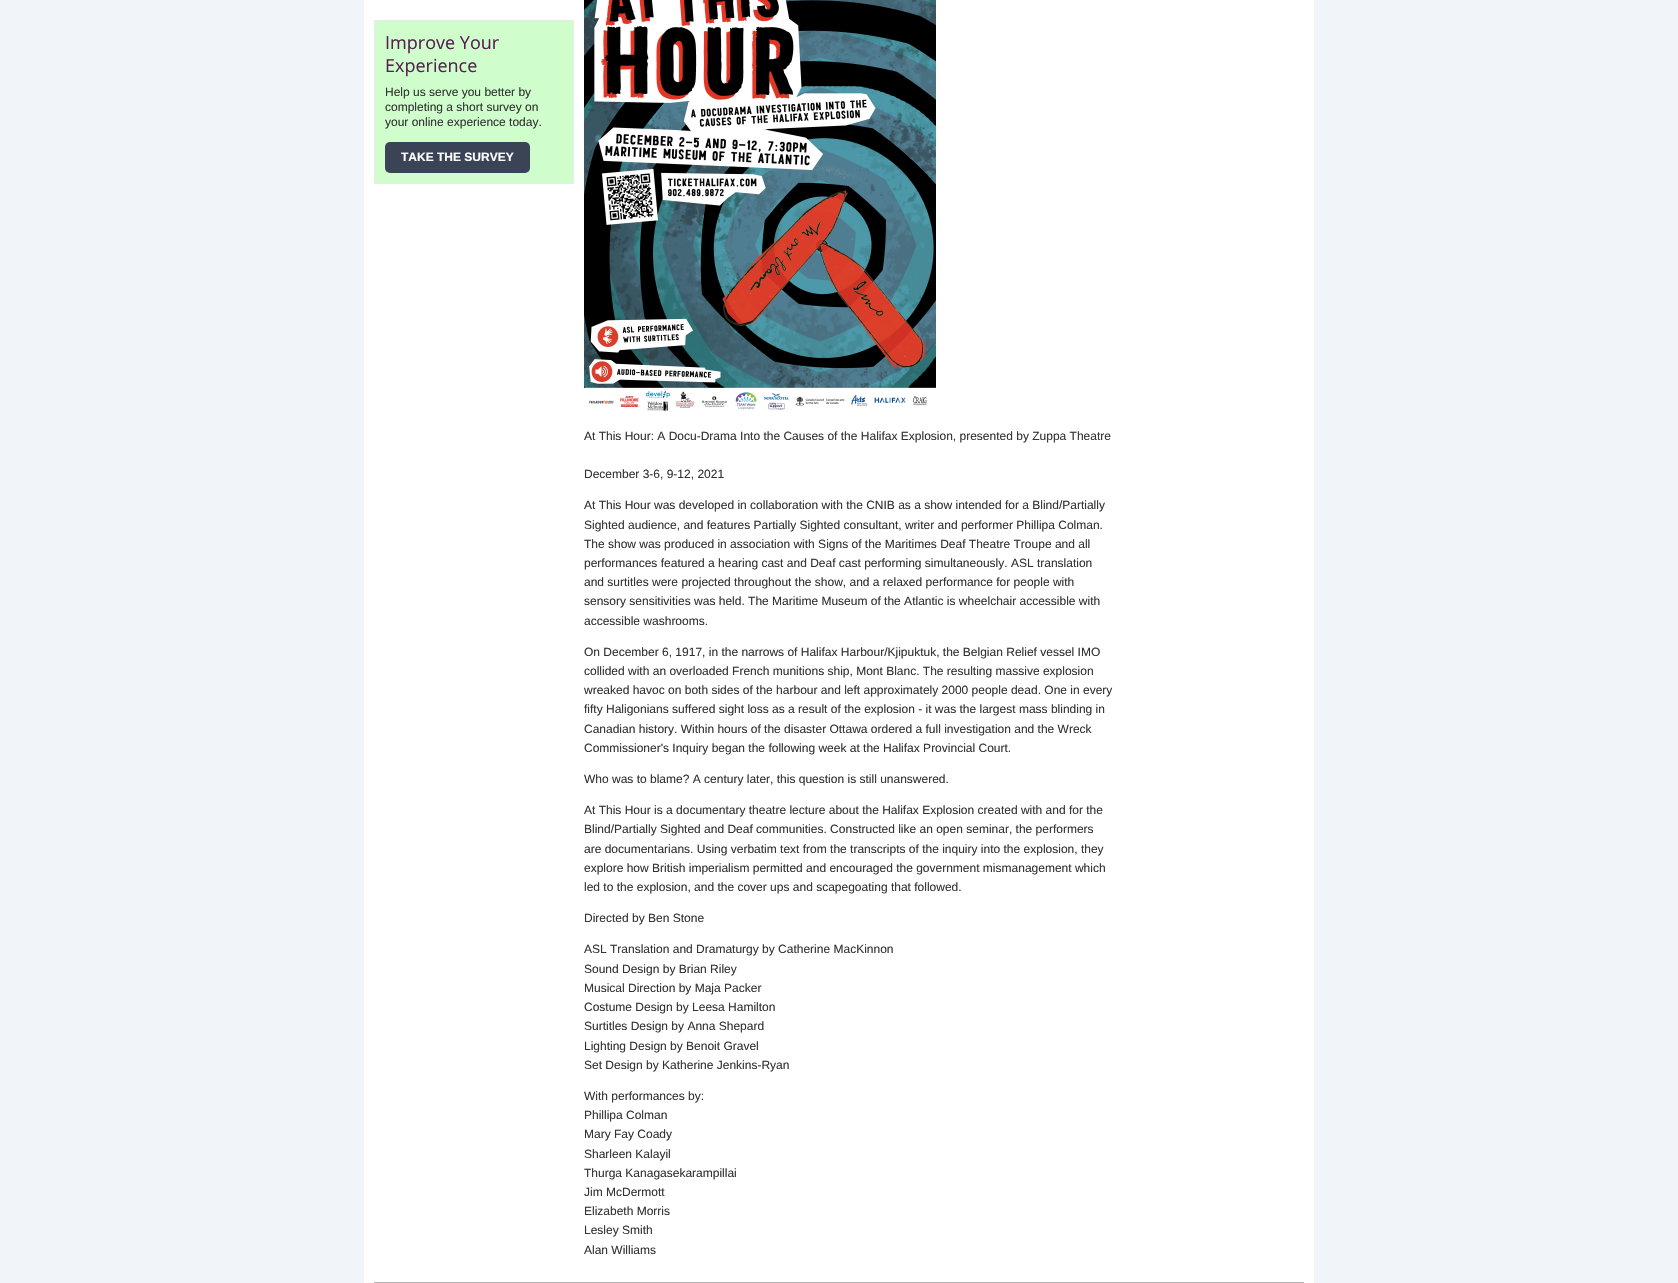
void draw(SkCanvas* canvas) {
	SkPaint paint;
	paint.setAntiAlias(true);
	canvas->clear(0xfff1f4f8);
	paint.setColor(0xffffffff);
	canvas->drawRect(SkRect::MakeXYWH(364, 0, 950, 1283), paint);
	paint.setColor(0xffcffecc);
	canvas->drawRect(SkRect::MakeXYWH(374.5, 20.5, 199, 163), paint);
	paint.setStroke(true);
	paint.setStrokeWidth(1);
	paint.setColor(0xffeaeae9);
	canvas->drawRect(SkRect::MakeXYWH(374.5, 20.5, 199, 163), paint);
	SkFont f1(fontMgr->matchFamilyStyle("Open Sans", SkFontStyle::Normal()), 18);
	f1.setSubpixel(true);
	paint.setStroke(false);
	paint.setColor(0xff581f54);
	canvas->drawString("Improve Your", 385, 49, f1, paint);
	canvas->drawString("Experience", 385, 72, f1, paint);
	SkFont f2(fontMgr->matchFamilyStyle("Liberation Sans", SkFontStyle::Normal()), 12);
	f2.setSubpixel(true);
	paint.setColor(0xff333333);
	canvas->drawString("Help us serve you better by", 385, 96, f2, paint);
	canvas->drawString("completing a short survey on", 385, 111, f2, paint);
	canvas->drawString("your online experience today.", 385, 126, f2, paint);
	paint.setColor(0xff3b4457);
	canvas->drawRoundRect(SkRect::MakeXYWH(385, 142, 145, 31), 5, 5, paint);
	SkFont f3(fontMgr->matchFamilyStyle("Liberation Sans", SkFontStyle::Bold()), 12);
	f3.setSubpixel(true);
	paint.setColor(0xffffffff);
	canvas->drawString("TAKE THE SURVEY", 401, 161, f3, paint);
	canvas->drawImageRect(SkImages::DeferredFromEncodedData(SkData::MakeFromFileName("img1.png")), SkRect::MakeXYWH(584, 0, 352, 411), SkSamplingOptions());
	paint.setColor(0xff333333);
	canvas->drawString("At This Hour: A Docu-Drama Into the Causes of the Halifax Explosion, presented by Zuppa Theatre", 584, 440, f2, paint);
	canvas->drawString("December 3-6, 9-12, 2021", 584, 478, f2, paint);
	canvas->drawString("At This Hour was developed in collaboration with the CNIB as a show intended for a Blind/Partially", 584, 509, f2, paint);
	canvas->drawString("Sighted audience, and features Partially Sighted consultant, writer and performer Phillipa Colman.", 584, 529, f2, paint);
	canvas->drawString("The show was produced in association with Signs of the Maritimes Deaf Theatre Troupe and all", 584, 548, f2, paint);
	canvas->drawString("performances featured a hearing cast and Deaf cast performing simultaneously. ASL translation", 584, 567, f2, paint);
	canvas->drawString("and surtitles were projected throughout the show, and a relaxed performance for people with", 584, 586, f2, paint);
	canvas->drawString("sensory sensitivities was held. The Maritime Museum of the Atlantic is wheelchair accessible with", 584, 605, f2, paint);
	canvas->drawString("accessible washrooms.", 584, 625, f2, paint);
	canvas->drawString("On December 6, 1917, in the narrows of Halifax Harbour/Kjipuktuk, the Belgian Relief vessel IMO", 584, 656, f2, paint);
	canvas->drawString("collided with an overloaded French munitions ship, Mont Blanc. The resulting massive explosion", 584, 675, f2, paint);
	canvas->drawString("wreaked havoc on both sides of the harbour and left approximately 2000 people dead. One in every", 584, 694, f2, paint);
	canvas->drawString("fifty Haligonians suffered sight loss as a result of the explosion - it was the largest mass blinding in", 584, 713, f2, paint);
	canvas->drawString("Canadian history. Within hours of the disaster Ottawa ordered a full investigation and the Wreck", 584, 733, f2, paint);
	canvas->drawString("Commissioner's Inquiry began the following week at the Halifax Provincial Court.", 584, 752, f2, paint);
	canvas->drawString("Who was to blame? A century later, this question is still unanswered.", 584, 783, f2, paint);
	canvas->drawString("At This Hour is a documentary theatre lecture about the Halifax Explosion created with and for the", 584, 814, f2, paint);
	canvas->drawString("Blind/Partially Sighted and Deaf communities. Constructed like an open seminar, the performers", 584, 833, f2, paint);
	canvas->drawString("are documentarians. Using verbatim text from the transcripts of the inquiry into the explosion, they", 584, 853, f2, paint);
	canvas->drawString("explore how British imperialism permitted and encouraged the government mismanagement which", 584, 872, f2, paint);
	canvas->drawString("led to the explosion, and the cover ups and scapegoating that followed.", 584, 891, f2, paint);
	canvas->drawString("Directed by Ben Stone", 584, 922, f2, paint);
	canvas->drawString("ASL Translation and Dramaturgy by Catherine MacKinnon", 584, 953, f2, paint);
	canvas->drawString("Sound Design by Brian Riley", 584, 973, f2, paint);
	canvas->drawString("Musical Direction by Maja Packer", 584, 992, f2, paint);
	canvas->drawString("Costume Design by Leesa Hamilton", 584, 1011, f2, paint);
	canvas->drawString("Surtitles Design by Anna Shepard", 584, 1030, f2, paint);
	canvas->drawString("Lighting Design by Benoit Gravel", 584, 1050, f2, paint);
	canvas->drawString("Set Design by Katherine Jenkins-Ryan", 584, 1069, f2, paint);
	canvas->drawString("With performances by:", 584, 1100, f2, paint);
	canvas->drawString("Phillipa Colman", 584, 1119, f2, paint);
	canvas->drawString("Mary Fay Coady", 584, 1138, f2, paint);
	canvas->drawString("Sharleen Kalayil", 584, 1158, f2, paint);
	canvas->drawString("Thurga Kanagasekarampillai", 584, 1177, f2, paint);
	canvas->drawString("Jim McDermott", 584, 1196, f2, paint);
	canvas->drawString("Elizabeth Morris", 584, 1215, f2, paint);
	canvas->drawString("Lesley Smith", 584, 1234, f2, paint);
	canvas->drawString("Alan Williams", 584, 1254, f2, paint);
	paint.setColor(0xffb2b2b2);
	canvas->drawRect(SkRect::MakeXYWH(374, 1282, 930, 1), paint);
}
